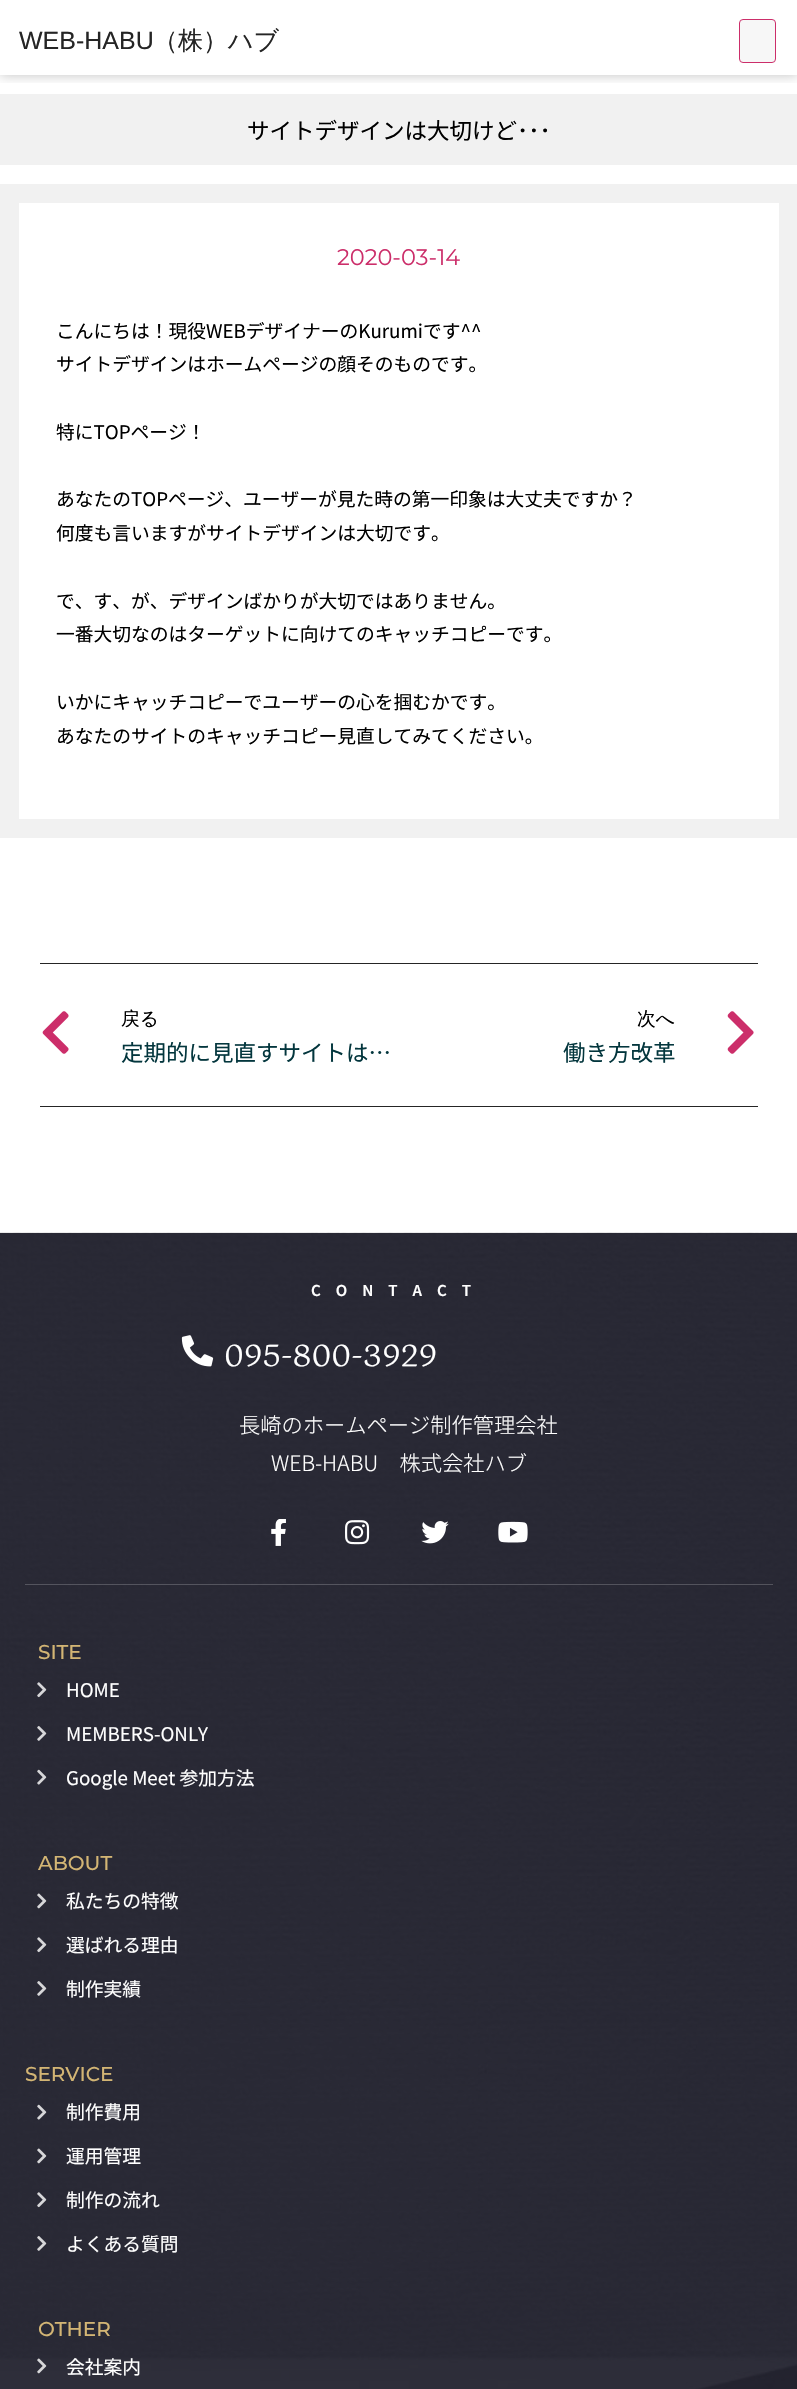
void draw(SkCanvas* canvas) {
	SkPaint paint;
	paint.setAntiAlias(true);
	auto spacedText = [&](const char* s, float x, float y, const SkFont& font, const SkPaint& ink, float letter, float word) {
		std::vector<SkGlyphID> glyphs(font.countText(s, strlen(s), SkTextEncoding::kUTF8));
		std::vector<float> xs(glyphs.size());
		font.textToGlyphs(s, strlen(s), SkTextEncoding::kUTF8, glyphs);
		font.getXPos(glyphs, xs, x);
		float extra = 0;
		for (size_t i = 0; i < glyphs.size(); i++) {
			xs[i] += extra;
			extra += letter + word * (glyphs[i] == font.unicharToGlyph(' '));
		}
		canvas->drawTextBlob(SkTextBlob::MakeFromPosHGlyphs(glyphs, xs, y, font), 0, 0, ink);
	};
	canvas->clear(0xffffffff);
	canvas->save();
	canvas->clipRect(SkRect::MakeXYWH(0, 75, 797, 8));
	paint.setColor(0x3d000000);
	paint.setMaskFilter(SkMaskFilter::MakeBlur(kNormal_SkBlurStyle, 6));
	canvas->drawRect(SkRect::MakeXYWH(0, 0, 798, 75), paint);
	paint.setMaskFilter(nullptr);
	canvas->restore();
	SkFont f1(fontMgr->matchFamilyStyle("Liberation Sans", SkFontStyle::Normal()), 25);
	f1.setSubpixel(true);
	paint.setColor(0xff252525);
	canvas->drawString("WEB-HABU", 19, 49, f1, paint);
	SkFont f2(fontMgr->matchFamilyStyle("WenQuanYi Zen Hei", SkFontStyle(500, SkFontStyle::kNormal_Width, SkFontStyle::kUpright_Slant)), 25);
	f2.setSubpixel(true);
	canvas->drawString("（株）ハブ", 153, 49, f2, paint);
	paint.setColor(0xfff7f7f7);
	canvas->drawRoundRect(SkRect::MakeXYWH(739.5, 19.5, 36, 43), 3.5, 3.5, paint);
	paint.setStroke(true);
	paint.setStrokeWidth(1);
	paint.setColor(0xffcc2e6a);
	canvas->drawRoundRect(SkRect::MakeXYWH(739.5, 19.5, 36, 43), 3.5, 3.5, paint);
	paint.setStroke(false);
	paint.setColor(0xfff1f1f1);
	canvas->drawRect(SkRect::MakeXYWH(0, 94, 797, 71), paint);
	SkFont f3(fontMgr->matchFamilyStyle("Noto Sans JP", SkFontStyle::Normal()), 22.5);
	f3.setSubpixel(true);
	paint.setColor(0xff000000);
	canvas->drawString("サイトデザインは大切けど･･･", 247, 139, f3, paint);
	paint.setColor(0xfff1f1f1);
	canvas->drawRect(SkRect::MakeXYWH(0, 184, 797, 654), paint);
	paint.setColor(0xffffffff);
	canvas->drawRect(SkRect::MakeXYWH(19, 203, 760, 616), paint);
	SkFont f4(fontMgr->matchFamilyStyle("Montserrat", SkFontStyle::Normal()), 22.5);
	f4.setSubpixel(true);
	paint.setColor(0xffcc2e6a);
	canvas->drawString("2020-03-14", 337, 265, f4, paint);
	SkFont f5(fontMgr->matchFamilyStyle("Noto Sans JP", SkFontStyle::Normal()), 18.75);
	f5.setSubpixel(true);
	paint.setColor(0xff000000);
	canvas->drawString("こんにちは！現役WEBデザイナーのKurumiです^^", 56, 338, f5, paint);
	canvas->drawString("サイトデザインはホームページの顔そのものです。", 56, 371, f5, paint);
	canvas->drawString("特にTOPページ！", 56, 439, f5, paint);
	canvas->drawString("あなたのTOPページ、ユーザーが見た時の第一印象は大丈夫ですか？", 56, 506, f5, paint);
	canvas->drawString("何度も言いますがサイトデザインは大切です。", 56, 540, f5, paint);
	canvas->drawString("で、す、が、デザインばかりが大切ではありません。", 56, 608, f5, paint);
	canvas->drawString("一番大切なのはターゲットに向けてのキャッチコピーです。", 56, 641, f5, paint);
	canvas->drawString("いかにキャッチコピーでユーザーの心を掴むかです。", 56, 709, f5, paint);
	canvas->drawString("あなたのサイトのキャッチコピー見直してみてください。", 56, 743, f5, paint);
	paint.setColor(0xff252525);
	canvas->drawRect(SkRect::MakeXYWH(40, 963, 718, 1), paint);
	canvas->drawRect(SkRect::MakeXYWH(40, 1106, 718, 1), paint);
	canvas->drawImageRect(SkImages::DeferredFromEncodedData(SkData::MakeFromFileName("img1.png")), SkRect::MakeXYWH(42, 1011, 27, 43), SkSamplingOptions());
	SkFont f6(fontMgr->matchFamilyStyle("WenQuanYi Zen Hei", SkFontStyle(500, SkFontStyle::kNormal_Width, SkFontStyle::kUpright_Slant)), 18.75);
	f6.setSubpixel(true);
	paint.setColor(0xff000000);
	canvas->drawString("戻る", 121, 1025, f6, paint);
	paint.setColor(0xff03363d);
	canvas->drawString("定期的に見直すサイトは…", 121, 1061, f3, paint);
	paint.setColor(0xff000000);
	canvas->drawString("次へ", 637, 1025, f6, paint);
	paint.setColor(0xff03363d);
	canvas->drawString("働き方改革", 563, 1061, f3, paint);
	canvas->drawImageRect(SkImages::DeferredFromEncodedData(SkData::MakeFromFileName("img2.png")), SkRect::MakeXYWH(727, 1011, 27, 43), SkSamplingOptions());
	canvas->drawImageRect(SkImages::DeferredFromEncodedData(SkData::MakeFromFileName("img3.png")), SkRect::MakeXYWH(0, 1232, 797, 1157), SkSamplingOptions());
	SkFont f7(fontMgr->matchFamilyStyle("Noto Sans JP", SkFontStyle(600, SkFontStyle::kNormal_Width, SkFontStyle::kUpright_Slant)), 15);
	f7.setSubpixel(true);
	paint.setColor(0xffffffff);
	spacedText("CONTACT", 311, 1296, f7, paint, 15, 0);
	canvas->drawImageRect(SkImages::DeferredFromEncodedData(SkData::MakeFromFileName("img4.png")), SkRect::MakeXYWH(181, 1335, 33, 32), SkSamplingOptions());
	SkFont f8(fontMgr->matchFamilyStyle("Gotu", SkFontStyle::Normal()), 30);
	f8.setSubpixel(true);
	canvas->drawString("095-800-3929", 224, 1366, f8, paint);
	paint.setColor(0x33ffffff);
	canvas->drawRect(SkRect::MakeXYWH(25, 1584, 748, 1), paint);
	SkFont f9(fontMgr->matchFamilyStyle("Noto Sans JP", SkFontStyle(300, SkFontStyle::kNormal_Width, SkFontStyle::kUpright_Slant)), 21.25);
	f9.setSubpixel(true);
	paint.setColor(0xffffffff);
	canvas->drawString("長崎のホームページ制作管理会社", 239, 1433, f9, paint);
	canvas->drawString("WEB-HABU　株式会社ハブ", 271, 1471, f9, paint);
	canvas->drawImageRect(SkImages::DeferredFromEncodedData(SkData::MakeFromFileName("img5.png")), SkRect::MakeXYWH(271, 1519, 15, 27), SkSamplingOptions());
	canvas->drawImageRect(SkImages::DeferredFromEncodedData(SkData::MakeFromFileName("img6.png")), SkRect::MakeXYWH(345, 1520, 25, 25), SkSamplingOptions());
	canvas->drawImageRect(SkImages::DeferredFromEncodedData(SkData::MakeFromFileName("img7.png")), SkRect::MakeXYWH(421, 1521, 28, 23), SkSamplingOptions());
	canvas->drawImageRect(SkImages::DeferredFromEncodedData(SkData::MakeFromFileName("img8.png")), SkRect::MakeXYWH(498, 1521, 30, 22), SkSamplingOptions());
	SkFont f10(fontMgr->matchFamilyStyle("Montserrat", SkFontStyle(500, SkFontStyle::kNormal_Width, SkFontStyle::kUpright_Slant)), 20);
	f10.setSubpixel(true);
	paint.setColor(0xffd3b574);
	canvas->drawString("SITE", 38, 1659, f10, paint);
	canvas->drawImageRect(SkImages::DeferredFromEncodedData(SkData::MakeFromFileName("img9.png")), SkRect::MakeXYWH(37, 1682, 10, 16), SkSamplingOptions());
	paint.setColor(0xffffffff);
	canvas->drawString("HOME", 66, 1697, f5, paint);
	canvas->drawImageRect(SkImages::DeferredFromEncodedData(SkData::MakeFromFileName("img10.png")), SkRect::MakeXYWH(37, 1726, 10, 15), SkSamplingOptions());
	canvas->drawString("MEMBERS-ONLY", 66, 1741, f5, paint);
	canvas->drawImageRect(SkImages::DeferredFromEncodedData(SkData::MakeFromFileName("img11.png")), SkRect::MakeXYWH(37, 1769, 10, 16), SkSamplingOptions());
	canvas->drawString("Google Meet 参加方法", 66, 1785, f5, paint);
	paint.setColor(0xffd3b574);
	canvas->drawString("ABOUT", 38, 1870, f10, paint);
	canvas->drawImageRect(SkImages::DeferredFromEncodedData(SkData::MakeFromFileName("img12.png")), SkRect::MakeXYWH(37, 1893, 10, 16), SkSamplingOptions());
	paint.setColor(0xffffffff);
	canvas->drawString("私たちの特徴", 66, 1908, f5, paint);
	canvas->drawImageRect(SkImages::DeferredFromEncodedData(SkData::MakeFromFileName("img13.png")), SkRect::MakeXYWH(37, 1937, 10, 16), SkSamplingOptions());
	canvas->drawString("選ばれる理由", 66, 1952, f5, paint);
	canvas->drawImageRect(SkImages::DeferredFromEncodedData(SkData::MakeFromFileName("img14.png")), SkRect::MakeXYWH(37, 1981, 10, 15), SkSamplingOptions());
	canvas->drawString("制作実績", 66, 1996, f5, paint);
	paint.setColor(0xffd3b574);
	canvas->drawString("SERVICE", 25, 2081, f10, paint);
	canvas->drawImageRect(SkImages::DeferredFromEncodedData(SkData::MakeFromFileName("img15.png")), SkRect::MakeXYWH(37, 2104, 10, 16), SkSamplingOptions());
	paint.setColor(0xffffffff);
	canvas->drawString("制作費用", 66, 2119, f5, paint);
	canvas->drawImageRect(SkImages::DeferredFromEncodedData(SkData::MakeFromFileName("img16.png")), SkRect::MakeXYWH(37, 2148, 10, 16), SkSamplingOptions());
	canvas->drawString("運用管理", 66, 2163, f5, paint);
	canvas->drawImageRect(SkImages::DeferredFromEncodedData(SkData::MakeFromFileName("img17.png")), SkRect::MakeXYWH(37, 2192, 10, 16), SkSamplingOptions());
	canvas->drawString("制作の流れ", 66, 2207, f5, paint);
	canvas->drawImageRect(SkImages::DeferredFromEncodedData(SkData::MakeFromFileName("img18.png")), SkRect::MakeXYWH(37, 2236, 10, 15), SkSamplingOptions());
	canvas->drawString("よくある質問", 66, 2251, f5, paint);
	paint.setColor(0xffd3b574);
	canvas->drawString("OTHER", 38, 2336, f10, paint);
	canvas->drawImageRect(SkImages::DeferredFromEncodedData(SkData::MakeFromFileName("img19.png")), SkRect::MakeXYWH(37, 2358, 10, 16), SkSamplingOptions());
	paint.setColor(0xffffffff);
	canvas->drawString("会社案内", 66, 2374, f5, paint);
}
